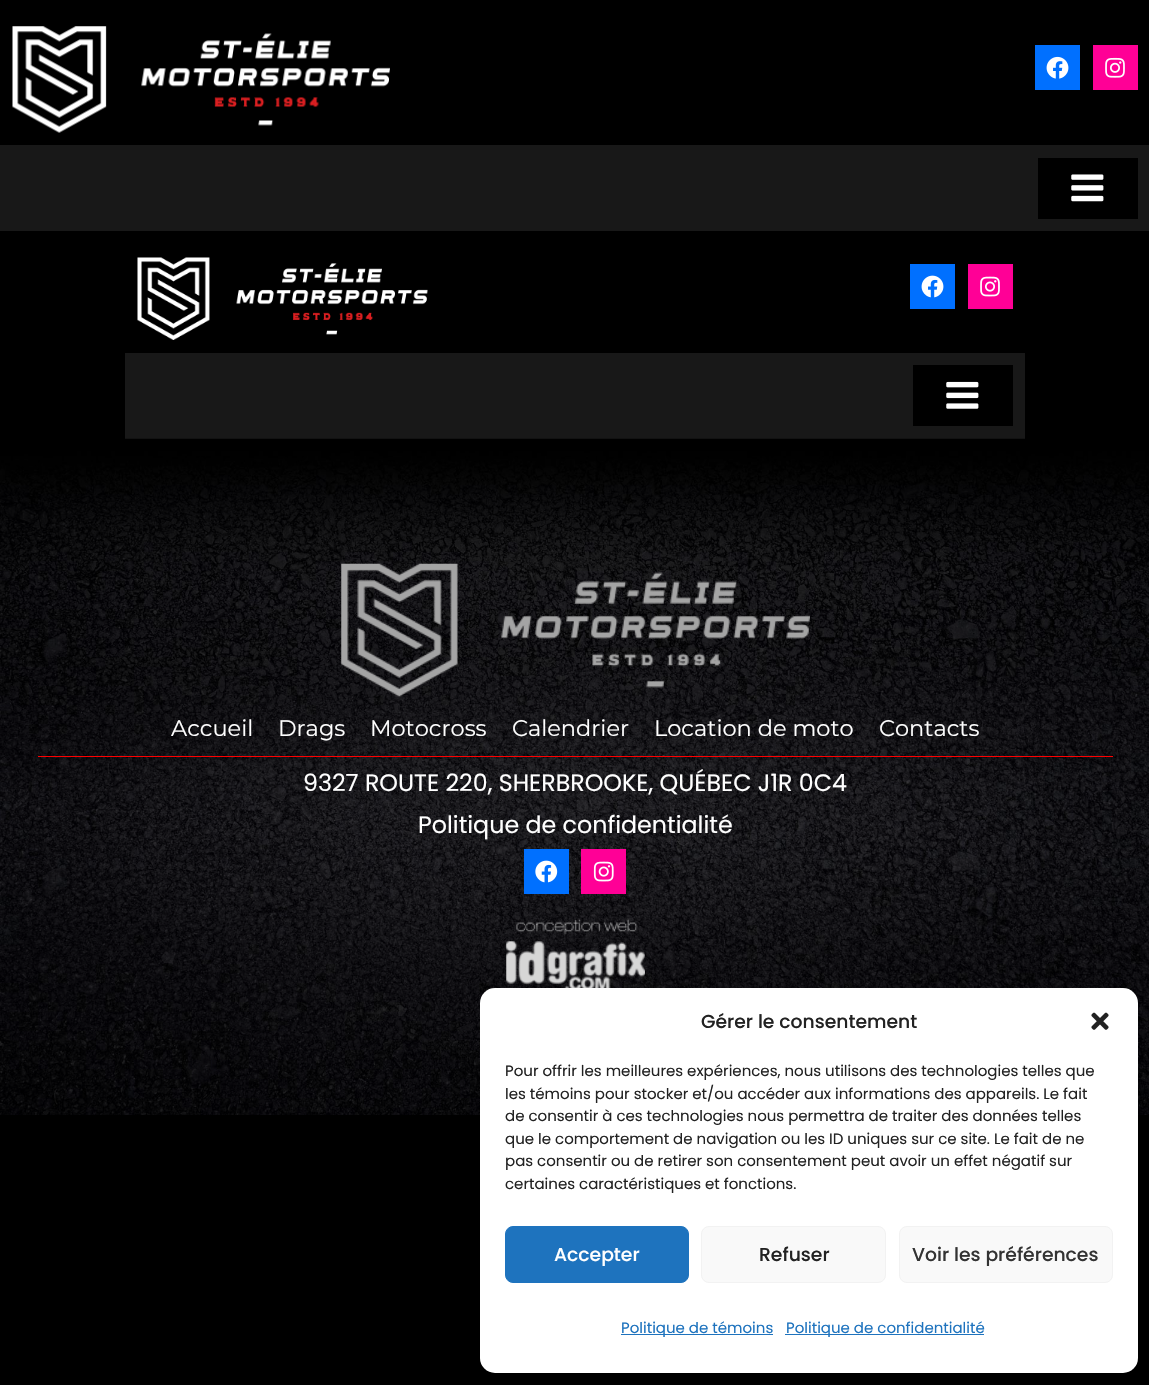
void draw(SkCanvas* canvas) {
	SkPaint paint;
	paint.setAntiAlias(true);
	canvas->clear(0xff000000);
	canvas->drawImageRect(SkImages::DeferredFromEncodedData(SkData::MakeFromFileName("img1.png")), SkRect::MakeXYWH(12, 26, 378, 107), SkSamplingOptions());
	paint.setColor(0xff0070ff);
	canvas->drawRect(SkRect::MakeXYWH(1035, 45, 45, 45), paint);
	canvas->drawImageRect(SkImages::DeferredFromEncodedData(SkData::MakeFromFileName("img2.png")), SkRect::MakeXYWH(1046, 56, 23, 23), SkSamplingOptions());
	paint.setColor(0xffff0096);
	canvas->drawRect(SkRect::MakeXYWH(1093, 45, 45, 45), paint);
	canvas->drawImageRect(SkImages::DeferredFromEncodedData(SkData::MakeFromFileName("img3.png")), SkRect::MakeXYWH(1105, 57, 20, 21), SkSamplingOptions());
	paint.setColor(0xff181818);
	canvas->drawRect(SkRect::MakeXYWH(0, 145, 1149, 86), paint);
	paint.setColor(0xff000000);
	canvas->drawRect(SkRect::MakeXYWH(1038, 158, 100, 61), paint);
	canvas->drawImageRect(SkImages::DeferredFromEncodedData(SkData::MakeFromFileName("img4.png")), SkRect::MakeXYWH(1071, 174, 33, 28), SkSamplingOptions());
	canvas->drawImageRect(SkImages::DeferredFromEncodedData(SkData::MakeFromFileName("img5.png")), SkRect::MakeXYWH(137, 257, 291, 83), SkSamplingOptions());
	paint.setColor(0xff0070ff);
	canvas->drawRect(SkRect::MakeXYWH(910, 264, 45, 45), paint);
	canvas->drawImageRect(SkImages::DeferredFromEncodedData(SkData::MakeFromFileName("img6.png")), SkRect::MakeXYWH(921, 275, 23, 23), SkSamplingOptions());
	paint.setColor(0xffff0096);
	canvas->drawRect(SkRect::MakeXYWH(968, 264, 45, 45), paint);
	canvas->drawImageRect(SkImages::DeferredFromEncodedData(SkData::MakeFromFileName("img7.png")), SkRect::MakeXYWH(980, 276, 20, 21), SkSamplingOptions());
	paint.setColor(0xff181818);
	canvas->drawRect(SkRect::MakeXYWH(125, 353, 900, 86), paint);
	paint.setColor(0xff000000);
	canvas->drawRect(SkRect::MakeXYWH(913, 365, 100, 61), paint);
	canvas->drawImageRect(SkImages::DeferredFromEncodedData(SkData::MakeFromFileName("img8.png")), SkRect::MakeXYWH(946, 381, 33, 28), SkSamplingOptions());
	canvas->drawImageRect(SkImages::DeferredFromEncodedData(SkData::MakeFromFileName("img9.png")), SkRect::MakeXYWH(0, 438, 1149, 677), SkSamplingOptions());
	canvas->drawImageRect(SkImages::DeferredFromEncodedData(SkData::MakeFromFileName("img10.png")), SkRect::MakeXYWH(341, 563, 469, 134), SkSamplingOptions());
	SkFont f1(fontMgr->matchFamilyStyle("Montserrat", SkFontStyle::Normal()), 22.5);
	f1.setSubpixel(true);
	paint.setColor(0xffffffff);
	canvas->drawString("Accueil", 171, 736, f1, paint);
	canvas->drawString("Drags", 278, 736, f1, paint);
	canvas->drawString("Motocross", 370, 736, f1, paint);
	canvas->drawString("Calendrier", 512, 736, f1, paint);
	canvas->drawString("Location de moto", 654, 736, f1, paint);
	canvas->drawString("Contacts", 879, 736, f1, paint);
	paint.setColor(0xffff0000);
	canvas->drawRect(SkRect::MakeXYWH(38, 756, 1075, 1), paint);
	SkFont f2(fontMgr->matchFamilyStyle("Poppins", SkFontStyle::Normal()), 23.75);
	f2.setSubpixel(true);
	paint.setColor(0xffffffff);
	canvas->drawString("9327 ROUTE 220, SHERBROOKE, QUÉBEC J1R 0C4", 303, 791, f2, paint);
	canvas->drawString("Politique de confidentialité", 418, 833, f2, paint);
	paint.setColor(0xff0070ff);
	canvas->drawRect(SkRect::MakeXYWH(524, 849, 45, 45), paint);
	canvas->drawImageRect(SkImages::DeferredFromEncodedData(SkData::MakeFromFileName("img11.png")), SkRect::MakeXYWH(535, 860, 23, 23), SkSamplingOptions());
	paint.setColor(0xffff0096);
	canvas->drawRect(SkRect::MakeXYWH(581, 849, 45, 45), paint);
	canvas->drawImageRect(SkImages::DeferredFromEncodedData(SkData::MakeFromFileName("img12.png")), SkRect::MakeXYWH(593, 861, 21, 21), SkSamplingOptions());
	canvas->drawImageRect(SkImages::DeferredFromEncodedData(SkData::MakeFromFileName("img13.png")), SkRect::MakeXYWH(506, 918, 139, 70), SkSamplingOptions());
	paint.setColor(0xffffffff);
	canvas->drawRoundRect(SkRect::MakeXYWH(480, 988, 658, 385), 15, 15, paint);
	SkFont f3(fontMgr->matchFamilyStyle("Poppins", SkFontStyle(500, SkFontStyle::kNormal_Width, SkFontStyle::kUpright_Slant)), 18.75);
	f3.setSubpixel(true);
	paint.setColor(0xff222222);
	canvas->drawString("Gérer le consentement", 701, 1028, f3, paint);
	canvas->drawImageRect(SkImages::DeferredFromEncodedData(SkData::MakeFromFileName("img14.png")), SkRect::MakeXYWH(1091, 1012, 18, 18), SkSamplingOptions());
	SkFont f4(fontMgr->matchFamilyStyle("Poppins", SkFontStyle::Normal()), 15);
	f4.setSubpixel(true);
	canvas->drawString("Pour offrir les meilleures expériences, nous utilisons des technologies telles que", 505, 1076, f4, paint);
	canvas->drawString("les témoins pour stocker et/ou accéder aux informations des appareils. Le fait", 505, 1099, f4, paint);
	canvas->drawString("de consentir à ces technologies nous permettra de traiter des données telles", 505, 1121, f4, paint);
	canvas->drawString("que le comportement de navigation ou les ID uniques sur ce site. Le fait de ne", 505, 1144, f4, paint);
	canvas->drawString("pas consentir ou de retirer son consentement peut avoir un effet négatif sur", 505, 1166, f4, paint);
	canvas->drawString("certaines caractéristiques et fonctions.", 505, 1189, f4, paint);
	paint.setColor(0xff1e73be);
	canvas->drawRoundRect(SkRect::MakeXYWH(505.5, 1226.5, 183, 56), 7.5, 7.5, paint);
	paint.setStroke(true);
	paint.setStrokeWidth(1);
	canvas->drawRoundRect(SkRect::MakeXYWH(505.5, 1226.5, 183, 56), 7.5, 7.5, paint);
	paint.setStroke(false);
	paint.setColor(0xffffffff);
	canvas->drawString("Accepter", 554, 1261, f3, paint);
	paint.setColor(0xfff9f9f9);
	canvas->drawRoundRect(SkRect::MakeXYWH(701.5, 1226.5, 184, 56), 7.5, 7.5, paint);
	paint.setStroke(true);
	paint.setColor(0xfff2f2f2);
	canvas->drawRoundRect(SkRect::MakeXYWH(701.5, 1226.5, 184, 56), 7.5, 7.5, paint);
	paint.setStroke(false);
	paint.setColor(0xff222222);
	canvas->drawString("Refuser", 759, 1261, f3, paint);
	paint.setColor(0xfff9f9f9);
	canvas->drawRoundRect(SkRect::MakeXYWH(899.5, 1226.5, 213, 56), 7.5, 7.5, paint);
	paint.setStroke(true);
	paint.setColor(0xfff2f2f2);
	canvas->drawRoundRect(SkRect::MakeXYWH(899.5, 1226.5, 213, 56), 7.5, 7.5, paint);
	paint.setStroke(false);
	paint.setColor(0xff333333);
	canvas->drawString("Voir les préférences", 912, 1261, f3, paint);
	paint.setColor(0xff1e73be);
	canvas->drawRect(SkRect::MakeXYWH(621, 1334, 152, 1), paint);
	canvas->drawString("Politique de témoins", 621, 1333, f4, paint);
	canvas->drawRect(SkRect::MakeXYWH(785, 1334, 199, 1), paint);
	canvas->drawString("Politique de confidentialité", 786, 1333, f4, paint);
}
